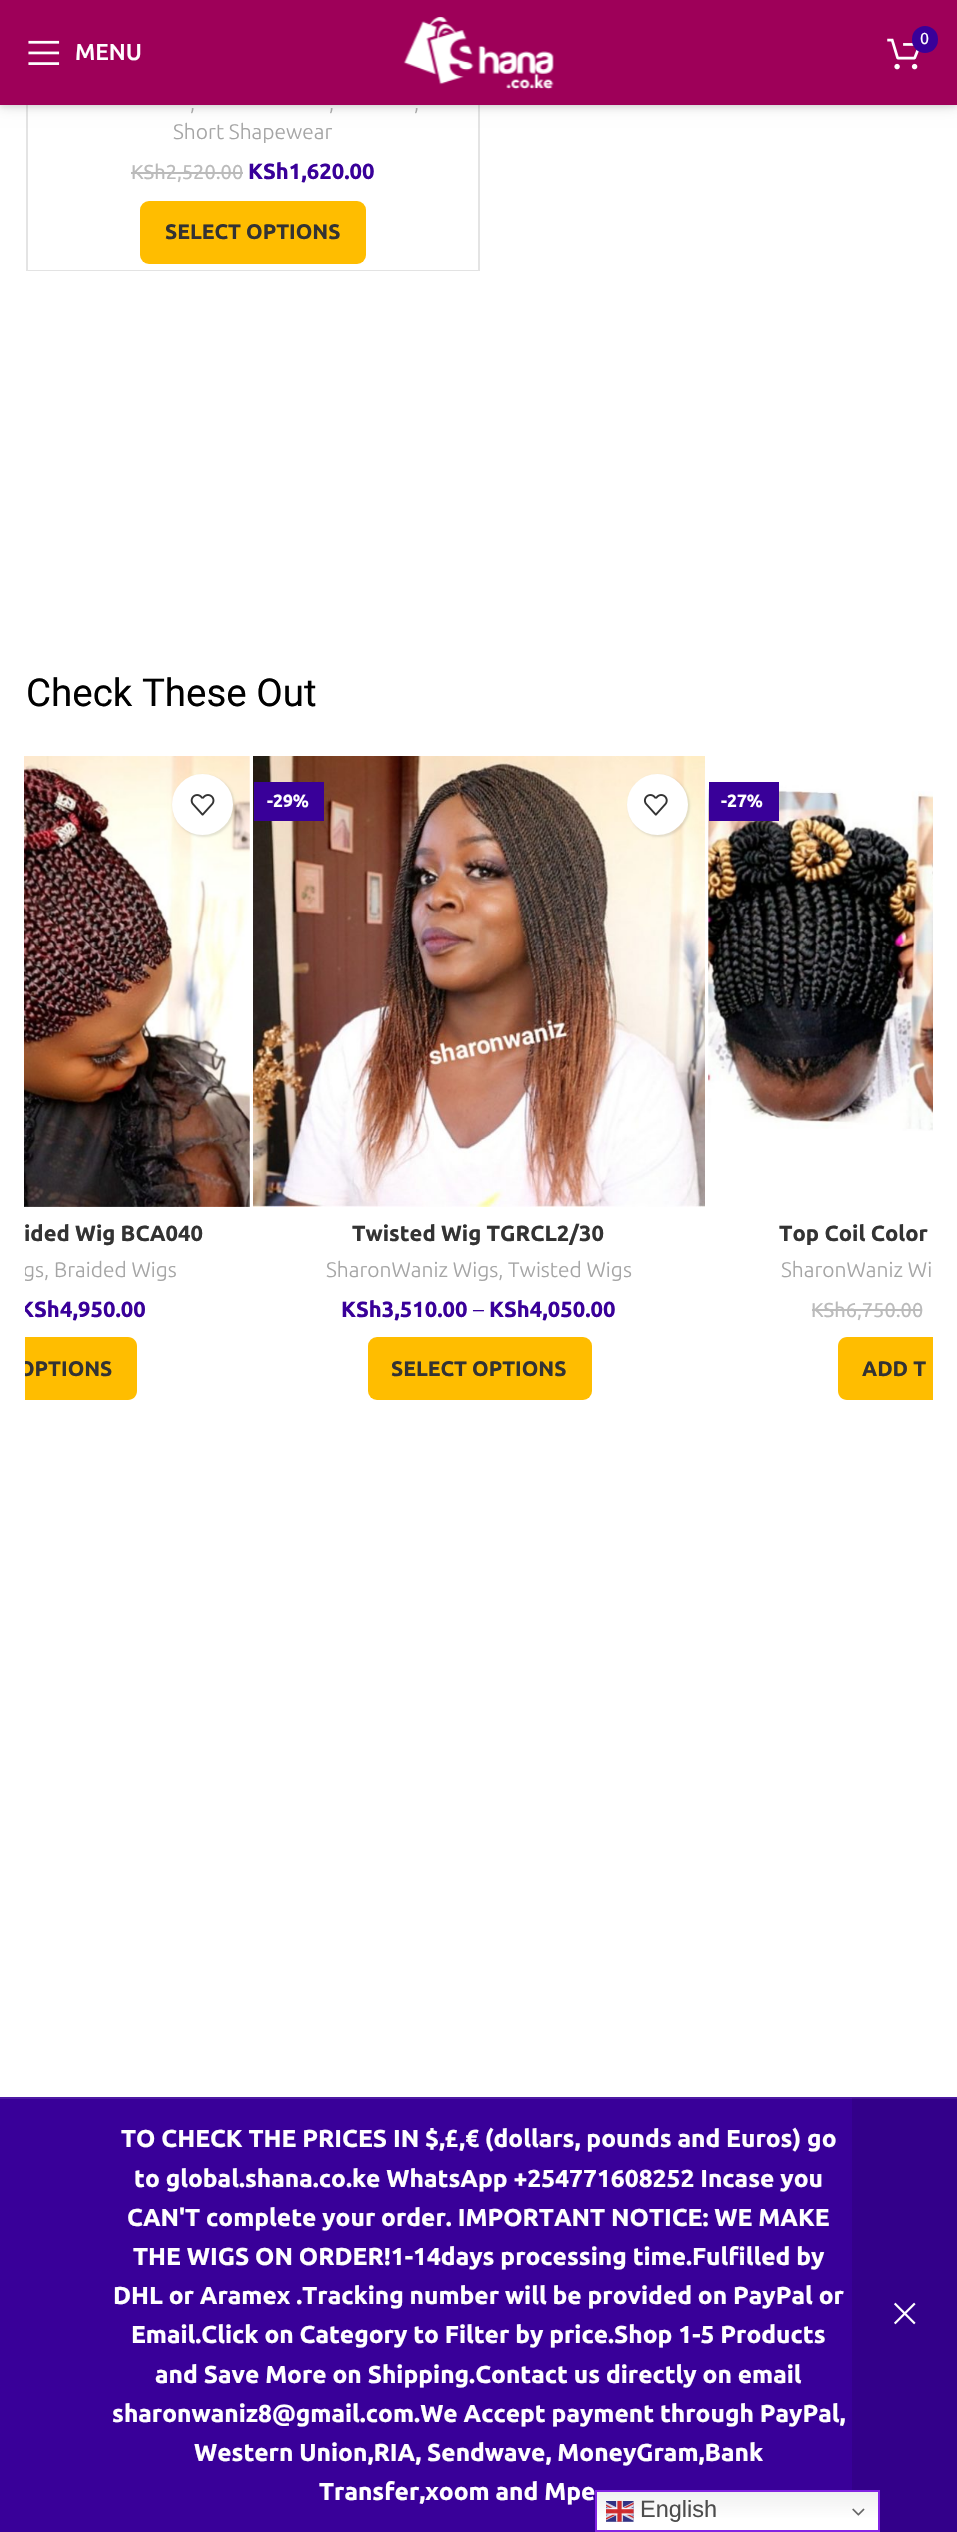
void draw(SkCanvas* canvas) {
	SkPaint paint;
	paint.setAntiAlias(true);
	auto svgPath = [&](const char* data, bool evenOdd = false) {
		SkPath result = *SkParsePath::FromSVGString(data);
		if (evenOdd) result.setFillType(SkPathFillType::kEvenOdd);
		return result;
	};
	canvas->clear(0xffffffff);
	paint.setColor(0xffe4e4e4);
	canvas->drawRect(SkRect::MakeXYWH(26, 105, 2, 166), paint);
	canvas->drawPath(svgPath("M480-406V271L478 270V-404Z"), paint);
	paint.setColor(0x1a000000);
	paint.setMaskFilter(SkMaskFilter::MakeBlur(kNormal_SkBlurStyle, 2.5));
	canvas->drawRect(SkRect::MakeXYWH(0, 2, 957, 105), paint);
	paint.setMaskFilter(nullptr);
	paint.setMaskFilter(SkMaskFilter::MakeBlur(kNormal_SkBlurStyle, 7));
	canvas->drawRect(SkRect::MakeXYWH(0, 2, 957, 105), paint);
	paint.setMaskFilter(nullptr);
	paint.setColor(0xff9e0059);
	canvas->drawRect(SkRect::MakeXYWH(0, 0, 957, 105), paint);
	canvas->drawImageRect(SkImages::DeferredFromEncodedData(SkData::MakeFromFileName("img1.png")), SkRect::MakeXYWH(403, 16, 151, 74), SkSamplingOptions());
	canvas->drawImageRect(SkImages::DeferredFromEncodedData(SkData::MakeFromFileName("img2.png")), SkRect::MakeXYWH(887, 38, 32, 32), SkSamplingOptions());
	paint.setColor(0xff390099);
	canvas->drawRoundRect(SkRect::MakeXYWH(912, 26, 26, 27), 13, 13, paint);
	SkFont f1(fontMgr->matchFamilyStyle("Ubuntu", SkFontStyle::Normal()), 16);
	f1.setSubpixel(true);
	paint.setColor(0xffffffff);
	canvas->drawString("0", 920, 44, f1, paint);
	canvas->drawImageRect(SkImages::DeferredFromEncodedData(SkData::MakeFromFileName("img3.png")), SkRect::MakeXYWH(28, 40, 32, 25), SkSamplingOptions());
	SkFont f2(fontMgr->matchFamilyStyle("Ubuntu", SkFontStyle(500, SkFontStyle::kNormal_Width, SkFontStyle::kUpright_Slant)), 23);
	f2.setSubpixel(true);
	canvas->drawString("MENU", 75, 60, f2, paint);
	paint.setColor(0x1c000000);
	canvas->drawPath(svgPath("M480 271H28V270H478Z"), paint);
	SkFont f3(fontMgr->matchFamilyStyle("Ubuntu", SkFontStyle(300, SkFontStyle::kNormal_Width, SkFontStyle::kUpright_Slant)), 21);
	f3.setSubpixel(true);
	paint.setColor(0xffa5a5a5);
	canvas->drawString(",", 190, 110, f3, paint);
	canvas->drawString(",", 329, 110, f3, paint);
	canvas->drawString(",", 414, 110, f3, paint);
	canvas->drawString("Short Shapewear", 173, 139, f3, paint);
	SkFont f4(fontMgr->matchFamilyStyle("Ubuntu", SkFontStyle::Normal()), 20);
	f4.setSubpixel(true);
	paint.setColor(0xffbbbbbb);
	canvas->drawString("KSh2,520.00", 131, 179, f4, paint);
	canvas->drawRect(SkRect::MakeXYWH(131, 172, 112, 2), paint);
	SkFont f5(fontMgr->matchFamilyStyle("Ubuntu", SkFontStyle::Bold()), 22);
	f5.setSubpixel(true);
	paint.setColor(0xff390099);
	canvas->drawString("KSh1,620.00", 248, 179, f5, paint);
	paint.setColor(0xffffbd00);
	canvas->drawRoundRect(SkRect::MakeXYWH(140, 201, 226, 63), 9, 9, paint);
	SkFont f6(fontMgr->matchFamilyStyle("Ubuntu", SkFontStyle::Bold()), 21);
	f6.setSubpixel(true);
	paint.setColor(0xff333333);
	canvas->drawString("SELECT OPTIONS", 165, 239, f6, paint);
	SkFont f7(fontMgr->matchFamilyStyle("Roboto", SkFontStyle::Normal()), 38.5);
	f7.setSubpixel(true);
	paint.setColor(0xff000000);
	canvas->drawString("Check These Out", 26, 706, f7, paint);
	canvas->drawImageRect(SkImages::DeferredFromEncodedData(SkData::MakeFromFileName("img4.png")), SkRect::MakeXYWH(24, 756, 226, 451), SkSamplingOptions());
	paint.setColor(0x1a000000);
	paint.setMaskFilter(SkMaskFilter::MakeBlur(kNormal_SkBlurStyle, 1));
	canvas->drawRoundRect(SkRect::MakeXYWH(173, 775, 62, 62), 31, 31, paint);
	paint.setMaskFilter(nullptr);
	paint.setColor(0xffffffff);
	canvas->drawCircle(202.5, 804.5, 30.5, paint);
	canvas->drawImageRect(SkImages::DeferredFromEncodedData(SkData::MakeFromFileName("img5.png")), SkRect::MakeXYWH(190, 794, 25, 22), SkSamplingOptions());
	paint.setColor(0xff333333);
	canvas->drawString("ided Wig BCA040", 24, 1241, f5, paint);
	canvas->save();
	canvas->clipRect(SkRect::MakeXYWH(25, 730, 908, 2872));
	paint.setColor(0xffa5a5a5);
	canvas->drawString("gs", 23, 1277, f3, paint);
	canvas->restore();
	canvas->drawString(", Braided Wigs", 44, 1277, f3, paint);
	canvas->save();
	canvas->clipRect(SkRect::MakeXYWH(25, 730, 908, 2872));
	paint.setColor(0xff390099);
	canvas->drawString("KSh", 19, 1317, f5, paint);
	canvas->restore();
	canvas->drawString("4,950.00", 60, 1317, f5, paint);
	paint.setColor(0xffffbd00);
	canvas->drawPath(svgPath("M25 1337H128C133 1337 137 1341 137 1346V1391C137 1396 133 1400 128 1400H25Z"), paint);
	canvas->save();
	canvas->clipRect(SkRect::MakeXYWH(25, 730, 908, 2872));
	paint.setColor(0xff333333);
	canvas->drawString("OPTIONS", 18, 1376, f6, paint);
	canvas->restore();
	canvas->drawImageRect(SkImages::DeferredFromEncodedData(SkData::MakeFromFileName("img6.png")), SkRect::MakeXYWH(253, 756, 452, 451), SkSamplingOptions());
	paint.setColor(0xff390099);
	canvas->drawRect(SkRect::MakeXYWH(254, 782, 70, 39), paint);
	SkFont f8(fontMgr->matchFamilyStyle("Ubuntu", SkFontStyle::Bold()), 17.5);
	f8.setSubpixel(true);
	paint.setColor(0xffffffff);
	canvas->drawString("-29%", 267, 807, f8, paint);
	paint.setColor(0x1a000000);
	paint.setMaskFilter(SkMaskFilter::MakeBlur(kNormal_SkBlurStyle, 1));
	canvas->drawRoundRect(SkRect::MakeXYWH(628, 775, 62, 62), 31, 31, paint);
	paint.setMaskFilter(nullptr);
	paint.setColor(0xffffffff);
	canvas->drawCircle(657.5, 804.5, 30.5, paint);
	canvas->drawImageRect(SkImages::DeferredFromEncodedData(SkData::MakeFromFileName("img7.png")), SkRect::MakeXYWH(643, 794, 25, 22), SkSamplingOptions());
	paint.setColor(0xff333333);
	canvas->drawString("Twisted Wig TGRCL2/30", 352, 1241, f5, paint);
	paint.setColor(0xffa5a5a5);
	canvas->drawString("SharonWaniz Wigs, Twisted Wigs", 326, 1277, f3, paint);
	paint.setColor(0xff390099);
	canvas->drawString("KSh3,510.00", 341, 1317, f5, paint);
	SkFont f9(fontMgr->matchFamilyStyle("Ubuntu", SkFontStyle(300, SkFontStyle::kNormal_Width, SkFontStyle::kUpright_Slant)), 22);
	f9.setSubpixel(true);
	canvas->drawString("–", 473, 1317, f9, paint);
	canvas->drawString("KSh4,050.00", 489, 1317, f5, paint);
	paint.setColor(0xffffbd00);
	canvas->drawRoundRect(SkRect::MakeXYWH(368, 1337, 224, 63), 9, 9, paint);
	paint.setColor(0xff333333);
	canvas->drawString("SELECT OPTIONS", 391, 1376, f6, paint);
	canvas->drawImageRect(SkImages::DeferredFromEncodedData(SkData::MakeFromFileName("img8.png")), SkRect::MakeXYWH(708, 784, 225, 347), SkSamplingOptions());
	paint.setColor(0xff390099);
	canvas->drawRect(SkRect::MakeXYWH(709, 782, 70, 39), paint);
	paint.setColor(0xffffffff);
	canvas->drawString("-27%", 721, 807, f8, paint);
	paint.setColor(0xff333333);
	canvas->drawString("Top Coil Color", 779, 1241, f5, paint);
	paint.setColor(0xffa5a5a5);
	canvas->drawString("SharonWaniz Wi", 781, 1277, f3, paint);
	paint.setColor(0xffbbbbbb);
	canvas->drawString("KSh6,750.00", 811, 1317, f4, paint);
	canvas->drawRect(SkRect::MakeXYWH(812, 1309, 110, 2), paint);
	paint.setColor(0xffffbd00);
	canvas->drawPath(svgPath("M847 1337H933V1400H847C842 1400 838 1396 838 1391V1346C838 1341 842 1337 847 1337Z"), paint);
	paint.setColor(0xff333333);
	canvas->drawString("ADD T", 862, 1376, f6, paint);
	paint.setColor(0xff390099);
	canvas->drawRect(SkRect::MakeXYWH(0, 2099, 852, 433), paint);
	paint.setColor(0xff33008a);
	canvas->drawRect(SkRect::MakeXYWH(852, 2099, 105, 433), paint);
	paint.setColor(0xff4d1aa3);
	canvas->drawRect(SkRect::MakeXYWH(0, 2097, 957, 2), paint);
	paint.setColor(0xff451793);
	canvas->drawRect(SkRect::MakeXYWH(852, 2098, 105, 1), paint);
	SkFont f10(fontMgr->matchFamilyStyle("Ubuntu", SkFontStyle::Bold()), 24.5);
	f10.setSubpixel(true);
	paint.setColor(0xffffffff);
	canvas->drawString("TO CHECK THE PRICES IN $,£,€ (dollars, pounds and Euros) go", 121, 2147, f10, paint);
	canvas->drawString("to global.shana.co.ke WhatsApp +254771608252 Incase you", 134, 2187, f10, paint);
	canvas->drawString("CAN'T complete your order. IMPORTANT NOTICE: WE MAKE", 127, 2226, f10, paint);
	canvas->drawString("THE WIGS ON ORDER!1-14days processing time.Fulfilled by", 133, 2265, f10, paint);
	canvas->drawString("DHL or Aramex .Tracking number will be provided on PayPal or", 113, 2304, f10, paint);
	canvas->drawImageRect(SkImages::DeferredFromEncodedData(SkData::MakeFromFileName("img9.png")), SkRect::MakeXYWH(894, 2302, 22, 23), SkSamplingOptions());
	canvas->drawString("Email.Click on Category to Filter by price.Shop 1-5 Products", 131, 2343, f10, paint);
	canvas->drawString("and Save More on Shipping.Contact us directly on email", 155, 2383, f10, paint);
	canvas->drawString("sharonwaniz8@gmail.com.We Accept payment through PayPal,", 112, 2422, f10, paint);
	canvas->drawString("Western Union,RIA, Sendwave, MoneyGram,Bank", 194, 2461, f10, paint);
	canvas->drawString("Transfer,xoom and Mpe", 319, 2500, f10, paint);
	{
		const SkColor colors[] = {0xffefefef, 0xffffffff};
		const float stops[] = {0, 0.7};
		const SkPoint ends[] = {{738, 2490}, {738, 2532}};
		paint.setShader(SkGradientShader::MakeLinear(ends, colors, stops, 2, SkTileMode::kClamp));
		paint.setAlpha(255);
	}
	canvas->drawRect(SkRect::MakeXYWH(597, 2492, 281, 38), paint);
	paint.setStroke(true);
	paint.setStrokeWidth(2);
	paint.setShader(nullptr);
	paint.setColor(0xff8224e3);
	canvas->drawRect(SkRect::MakeXYWH(596, 2491, 283, 40), paint);
	canvas->drawImageRect(SkImages::DeferredFromEncodedData(SkData::MakeFromFileName("img10.png")), SkRect::MakeXYWH(606, 2500, 28, 22), SkSamplingOptions());
	SkFont f11(fontMgr->matchFamilyStyle("Liberation Sans", SkFontStyle::Normal()), 23.5);
	f11.setSubpixel(true);
	paint.setStroke(false);
	paint.setColor(0xff4c4c4c);
	canvas->drawString("English", 640, 2517, f11, paint);
	canvas->drawImageRect(SkImages::DeferredFromEncodedData(SkData::MakeFromFileName("img11.png")), SkRect::MakeXYWH(852, 2508, 13, 8), SkSamplingOptions());
}
